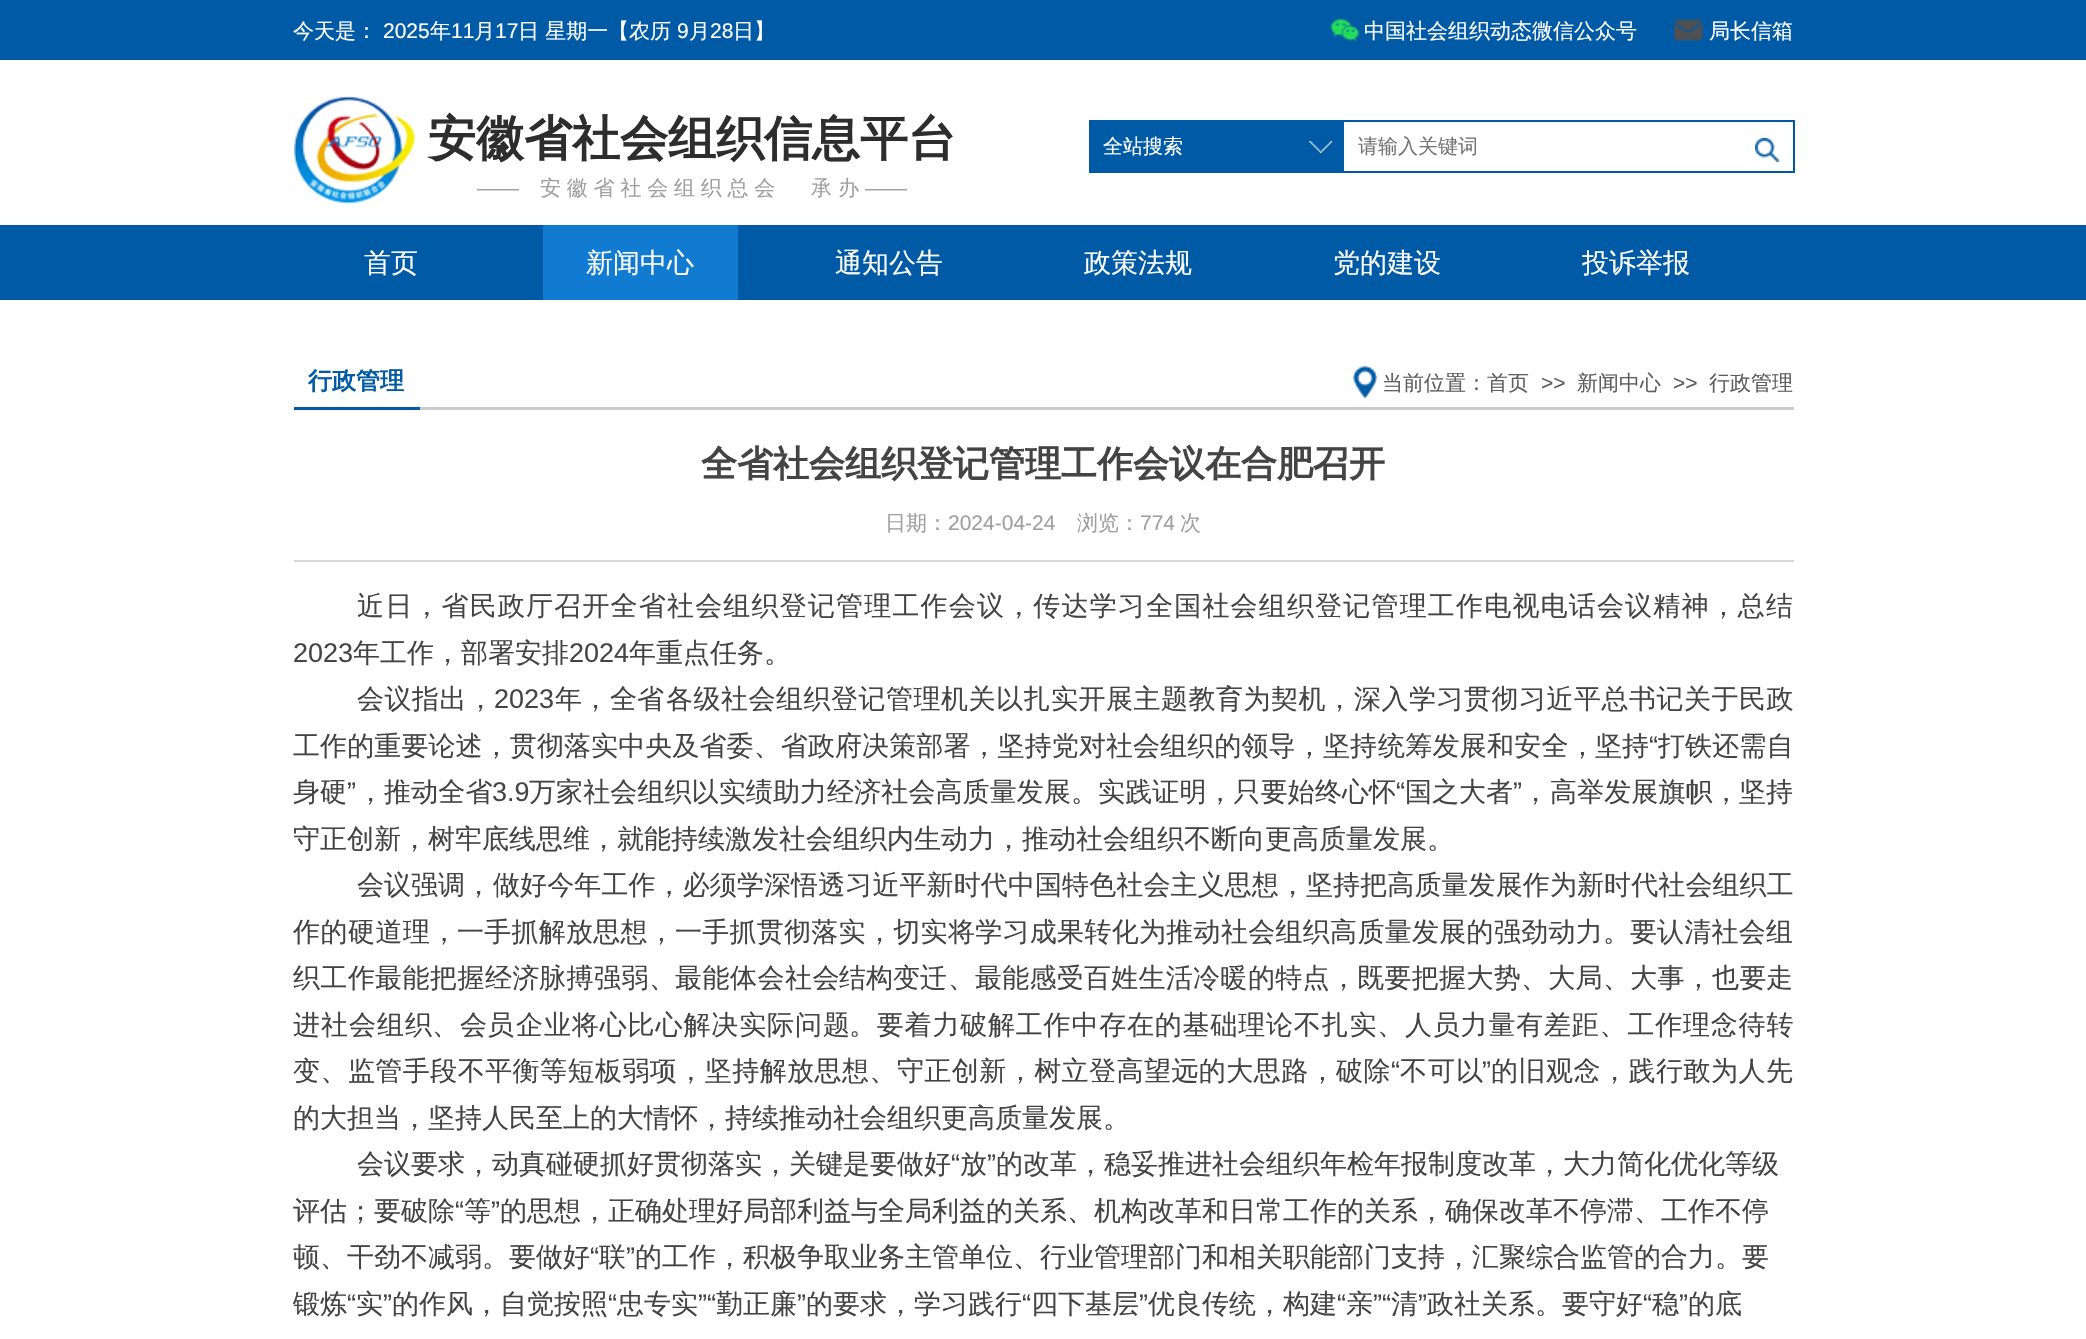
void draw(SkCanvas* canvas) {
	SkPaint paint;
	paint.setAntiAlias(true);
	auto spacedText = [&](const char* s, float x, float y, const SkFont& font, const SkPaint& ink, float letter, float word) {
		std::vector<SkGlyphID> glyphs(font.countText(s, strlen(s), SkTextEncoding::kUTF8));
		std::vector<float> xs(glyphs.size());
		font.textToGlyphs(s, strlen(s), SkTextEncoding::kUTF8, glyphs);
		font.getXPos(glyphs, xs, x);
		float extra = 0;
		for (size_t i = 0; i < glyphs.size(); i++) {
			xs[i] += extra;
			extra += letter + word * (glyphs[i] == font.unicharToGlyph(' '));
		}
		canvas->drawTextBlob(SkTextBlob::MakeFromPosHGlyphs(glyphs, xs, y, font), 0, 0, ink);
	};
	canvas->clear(0xffffffff);
	paint.setColor(0xff005aa5);
	canvas->drawRect(SkRect::MakeXYWH(0, 0, 2086, 60), paint);
	SkFont f1(fontMgr->matchFamilyStyle("WenQuanYi Zen Hei", SkFontStyle(500, SkFontStyle::kNormal_Width, SkFontStyle::kUpright_Slant)), 21);
	f1.setSubpixel(true);
	paint.setColor(0xffffffff);
	canvas->drawString("今天是：", 293, 38, f1, paint);
	SkFont f2(fontMgr->matchFamilyStyle("Liberation Sans", SkFontStyle::Normal()), 21);
	f2.setSubpixel(true);
	canvas->drawString("2025", 383, 38, f2, paint);
	canvas->drawString("年", 430, 38, f1, paint);
	canvas->drawString("11", 451, 38, f2, paint);
	canvas->drawString("月", 474, 38, f1, paint);
	canvas->drawString("17", 495, 38, f2, paint);
	canvas->drawString("日 星期一", 518, 38, f1, paint);
	canvas->drawString("【农历", 608, 38, f1, paint);
	canvas->drawString("9", 677, 38, f2, paint);
	canvas->drawString("月", 689, 38, f1, paint);
	canvas->drawString("28", 710, 38, f2, paint);
	canvas->drawString("日】", 733, 38, f1, paint);
	canvas->drawImageRect(SkImages::DeferredFromEncodedData(SkData::MakeFromFileName("img1.png")), SkRect::MakeXYWH(1330, 19, 30, 24), SkSamplingOptions());
	canvas->drawString("中国社会组织动态微信公众号", 1364, 38, f1, paint);
	canvas->drawImageRect(SkImages::DeferredFromEncodedData(SkData::MakeFromFileName("img2.png")), SkRect::MakeXYWH(1674, 19, 29, 22), SkSamplingOptions());
	canvas->drawString("局长信箱", 1709, 38, f1, paint);
	canvas->drawImageRect(SkImages::DeferredFromEncodedData(SkData::MakeFromFileName("img3.png")), SkRect::MakeXYWH(294, 96, 122, 108), SkSamplingOptions());
	SkFont f3(fontMgr->matchFamilyStyle("WenQuanYi Zen Hei", SkFontStyle::Bold()), 48);
	f3.setSubpixel(true);
	paint.setColor(0xff2d2d2d);
	canvas->drawString("安徽省社会组织信息平台", 428, 155, f3, paint);
	paint.setColor(0xff9f9f9f);
	canvas->drawString("——", 477, 195, f2, paint);
	spacedText("安 徽 省 社 会 组 织 总 会", 540, 195, f1, paint, 0, -0.5);
	canvas->drawString("承 办", 811, 195, f1, paint);
	canvas->drawString("——", 865, 195, f2, paint);
	paint.setColor(0xff005aa5);
	canvas->drawRect(SkRect::MakeXYWH(1089, 120, 255, 53), paint);
	canvas->drawImageRect(SkImages::DeferredFromEncodedData(SkData::MakeFromFileName("img4.png")), SkRect::MakeXYWH(1309, 141, 23, 12), SkSamplingOptions());
	SkFont f4(fontMgr->matchFamilyStyle("WenQuanYi Zen Hei", SkFontStyle(500, SkFontStyle::kNormal_Width, SkFontStyle::kUpright_Slant)), 20);
	f4.setSubpixel(true);
	paint.setColor(0xffffffff);
	canvas->drawString("全站搜索", 1103, 153, f4, paint);
	paint.setColor(0xff005aa5);
	canvas->drawRect(SkRect::MakeXYWH(1344, 120, 450, 2), paint);
	canvas->drawRect(SkRect::MakeXYWH(1793, 120, 2, 53), paint);
	canvas->drawRect(SkRect::MakeXYWH(1344, 171, 450, 2), paint);
	paint.setColor(0xff757575);
	canvas->drawString("请输入关键词", 1358, 153, f4, paint);
	canvas->drawImageRect(SkImages::DeferredFromEncodedData(SkData::MakeFromFileName("img5.png")), SkRect::MakeXYWH(1755, 138, 24, 24), SkSamplingOptions());
	paint.setColor(0xff005aa5);
	canvas->drawRect(SkRect::MakeXYWH(0, 225, 2086, 75), paint);
	SkFont f5(fontMgr->matchFamilyStyle("WenQuanYi Zen Hei", SkFontStyle(500, SkFontStyle::kNormal_Width, SkFontStyle::kUpright_Slant)), 27);
	f5.setSubpixel(true);
	paint.setColor(0xffffffff);
	canvas->drawString("首页", 364, 272, f5, paint);
	paint.setColor(0xff117ad1);
	canvas->drawRect(SkRect::MakeXYWH(543, 225, 195, 75), paint);
	paint.setColor(0xffffffff);
	canvas->drawString("新闻中心", 586, 272, f5, paint);
	canvas->drawString("通知公告", 835, 272, f5, paint);
	canvas->drawString("政策法规", 1084, 272, f5, paint);
	canvas->drawString("党的建设", 1333, 272, f5, paint);
	canvas->drawString("投诉举报", 1582, 272, f5, paint);
	paint.setColor(0xffcccccc);
	canvas->drawRect(SkRect::MakeXYWH(420, 407, 1374, 3), paint);
	paint.setColor(0xff005aa5);
	canvas->drawRect(SkRect::MakeXYWH(294, 407, 126, 3), paint);
	SkFont f6(fontMgr->matchFamilyStyle("WenQuanYi Zen Hei", SkFontStyle::Bold()), 24);
	f6.setSubpixel(true);
	canvas->drawString("行政管理", 308, 389, f6, paint);
	canvas->drawImageRect(SkImages::DeferredFromEncodedData(SkData::MakeFromFileName("img6.png")), SkRect::MakeXYWH(1353, 366, 24, 33), SkSamplingOptions());
	paint.setColor(0xff5e5e5e);
	canvas->drawString("当前位置：首页", 1382, 390, f1, paint);
	canvas->drawString(">>", 1541, 390, f2, paint);
	canvas->drawString("新闻中心", 1577, 390, f1, paint);
	canvas->drawString(">>", 1673, 390, f2, paint);
	canvas->drawString("行政管理", 1709, 390, f1, paint);
	paint.setColor(0xffd7d7d7);
	canvas->drawRect(SkRect::MakeXYWH(294, 560, 1500, 2), paint);
	SkFont f7(fontMgr->matchFamilyStyle("WenQuanYi Zen Hei", SkFontStyle::Bold()), 36);
	f7.setSubpixel(true);
	paint.setColor(0xff444444);
	canvas->drawString("全省社会组织登记管理工作会议在合肥召开", 701, 476, f7, paint);
	paint.setColor(0xff9f9f9f);
	canvas->drawString("日期：", 885, 530, f1, paint);
	canvas->drawString("2024-04-24", 948, 530, f2, paint);
	canvas->drawString("浏览：", 1077, 530, f1, paint);
	canvas->drawString("774", 1140, 530, f2, paint);
	canvas->drawString("次", 1180, 530, f1, paint);
	paint.setColor(0xff444444);
	spacedText("近日，省民政厅召开全省社会组织登记管理工作会议，传达学习全国社会组织登记管理工作电视电话会议精神，总结", 357, 615, f5, paint, 1.18, 0);
	SkFont f8(fontMgr->matchFamilyStyle("Liberation Sans", SkFontStyle::Normal()), 27);
	f8.setSubpixel(true);
	canvas->drawString("2023", 293, 662, f8, paint);
	canvas->drawString("年工作，部署安排", 353, 662, f5, paint);
	canvas->drawString("2024", 569, 662, f8, paint);
	canvas->drawString("年重点任务。", 629, 662, f5, paint);
	spacedText("会议指出", 357, 708, f5, paint, 0.5, 0);
	canvas->drawString("，", 467, 708, f5, paint);
	canvas->drawString("2023", 494, 708, f8, paint);
	canvas->drawString("年，", 555, 708, f5, paint);
	canvas->drawString("全省", 610, 708, f5, paint);
	spacedText("各级社会组织登记管理机关", 666, 708, f5, paint, 0.5, 0);
	spacedText("以扎实开展主题教育为契机，", 996, 708, f5, paint, 0.5, 0);
	spacedText("深入学习贯彻习近平总书记关于民政", 1354, 708, f5, paint, 0.5, 0);
	spacedText("工作的重要论述，贯彻落实中央及省委、省政府决策部署，坚持党对社会组织的领导，", 293, 755, f5, paint, 0.1, 0);
	canvas->drawString("坚持", 1323, 755, f5, paint);
	spacedText("统筹发展和安全，", 1378, 755, f5, paint, 0.25, 0);
	canvas->drawString("坚持", 1595, 755, f5, paint);
	spacedText("“", 1649, 755, f8, paint, 0.1, 0);
	spacedText("打铁还需自", 1658, 755, f5, paint, 0.1, 0);
	spacedText("身硬", 293, 801, f5, paint, 0.1, 0);
	spacedText("”", 347, 801, f8, paint, 0.1, 0);
	spacedText("，推动全省", 357, 801, f5, paint, 0.1, 0);
	canvas->drawString("3.9", 492, 801, f8, paint);
	spacedText("万家社会组织以实绩助力经济社会高质量发展。实践证明，只要始终", 529, 801, f5, paint, 0.1, 0);
	canvas->drawString("心怀", 1342, 801, f5, paint);
	canvas->drawString("“", 1396, 801, f8, paint);
	canvas->drawString("国之大者", 1405, 801, f5, paint);
	canvas->drawString("”", 1513, 801, f8, paint);
	spacedText("高举发展旗帜，", 1550, 801, f5, paint, 0.1, 0);
	canvas->drawString("坚持", 1739, 801, f5, paint);
	canvas->drawString("，", 1522, 801, f5, paint);
	canvas->drawString("守正创新，树牢底线思维，就能持续激发社会组织内生动力，推动社会组织不断向更高质量发展。", 293, 848, f5, paint);
	canvas->drawString("会议强调，", 357, 894, f5, paint);
	spacedText("做好今年工作，必须学深悟透习近平新时代中国特色社会主义思想，坚持把高质量发展作为新时代社会组织工", 493, 894, f5, paint, 0.1, 0);
	spacedText("作的硬道理，", 293, 941, f5, paint, 0.5, 0);
	spacedText("一手抓解放思想，一手抓贯彻落实", 457, 941, f5, paint, 0.25, 0);
	spacedText("，切实将学习成果转化为推动社会组织高质量发展的强劲动力。", 866, 941, f5, paint, 0.3, 0);
	canvas->drawString("要", 1630, 941, f5, paint);
	spacedText("认清社会组", 1657, 941, f5, paint, 0.25, 0);
	spacedText("织工作", 293, 987, f5, paint, 0.5, 0);
	spacedText("最能把握经济", 375, 987, f5, paint, 0.5, 0);
	spacedText("脉搏强弱、", 539, 987, f5, paint, 0.5, 0);
	spacedText("最能体会社会", 675, 987, f5, paint, 0.5, 0);
	canvas->drawString("结构", 839, 987, f5, paint);
	canvas->drawString("变迁", 893, 987, f5, paint);
	canvas->drawString("、", 948, 987, f5, paint);
	spacedText("最能感受百姓生活冷暖", 975, 987, f5, paint, 0.25, 0);
	spacedText("的特点，既要把握大势、大局、大事，也要", 1248, 987, f5, paint, 0.3, 0);
	canvas->drawString("走", 1766, 987, f5, paint);
	spacedText("进社会组织", 293, 1034, f5, paint, 1, 0);
	canvas->drawString("、", 432, 1034, f5, paint);
	canvas->drawString("会员", 460, 1034, f5, paint);
	spacedText("企业将心比心解决实际问题", 516, 1034, f5, paint, 0.9, 0);
	spacedText("。要着力破解工作中存在的基础理论不扎实、人员力量有差距、工作理念待转", 849, 1034, f5, paint, 0.8, 0);
	spacedText("变、监管手段不平衡等短板弱项，坚持解放思想、守正创新，树立登高望远的大思路，破除", 293, 1080, f5, paint, 0.45, 0);
	canvas->drawString("“", 1391, 1080, f8, paint);
	spacedText("不可以", 1400, 1080, f5, paint, 1, 0);
	canvas->drawString("”", 1482, 1080, f8, paint);
	spacedText("的旧观念，践行敢为人先", 1491, 1080, f5, paint, 0.5, 0);
	canvas->drawString("的大担当，坚持人民至上的大情怀，持续推动社会组织更高质量发展。", 293, 1127, f5, paint);
	canvas->drawString("会议要求，动真碰硬抓好贯彻落实，关键是要做好", 357, 1173, f5, paint);
	canvas->drawString("“", 951, 1173, f8, paint);
	canvas->drawString("放", 960, 1173, f5, paint);
	canvas->drawString("”", 987, 1173, f8, paint);
	canvas->drawString("的改革，稳妥推进社会组织年检年报制度改革，大力简化优化等级", 996, 1173, f5, paint);
	canvas->drawString("评估；要破除", 293, 1220, f5, paint);
	canvas->drawString("“", 455, 1220, f8, paint);
	canvas->drawString("等", 464, 1220, f5, paint);
	canvas->drawString("”", 491, 1220, f8, paint);
	canvas->drawString("的思想，正确处理好局部利益与全局利益的关系、机构改革和日常工作的关系，确保改革不停滞、工作不停", 500, 1220, f5, paint);
	canvas->drawString("顿、干劲不减弱。要做好", 293, 1266, f5, paint);
	canvas->drawString("“", 590, 1266, f8, paint);
	canvas->drawString("联", 599, 1266, f5, paint);
	canvas->drawString("”", 626, 1266, f8, paint);
	canvas->drawString("的工作，积极争取业务主管单位、行业管理部门和相关职能部门支持，汇聚综合监管的合力。要", 635, 1266, f5, paint);
	canvas->drawString("锻炼", 293, 1313, f5, paint);
	canvas->drawString("“", 347, 1313, f8, paint);
	canvas->drawString("实", 356, 1313, f5, paint);
	canvas->drawString("”", 383, 1313, f8, paint);
	canvas->drawString("的作风，自觉按照", 392, 1313, f5, paint);
	canvas->drawString("“", 608, 1313, f8, paint);
	canvas->drawString("忠专实", 617, 1313, f5, paint);
	canvas->drawString("”“", 698, 1313, f8, paint);
	canvas->drawString("勤正廉", 716, 1313, f5, paint);
	canvas->drawString("”", 797, 1313, f8, paint);
	canvas->drawString("的要求，学习践行", 806, 1313, f5, paint);
	canvas->drawString("“", 1022, 1313, f8, paint);
	canvas->drawString("四下基层", 1031, 1313, f5, paint);
	canvas->drawString("”", 1139, 1313, f8, paint);
	canvas->drawString("优良传统，构建", 1148, 1313, f5, paint);
	canvas->drawString("“", 1337, 1313, f8, paint);
	canvas->drawString("亲", 1346, 1313, f5, paint);
	canvas->drawString("”“", 1373, 1313, f8, paint);
	canvas->drawString("清", 1391, 1313, f5, paint);
	canvas->drawString("”", 1418, 1313, f8, paint);
	canvas->drawString("政社关系。要守好", 1427, 1313, f5, paint);
	canvas->drawString("“", 1643, 1313, f8, paint);
	canvas->drawString("稳", 1652, 1313, f5, paint);
	canvas->drawString("”", 1679, 1313, f8, paint);
	canvas->drawString("的底", 1688, 1313, f5, paint);
}
